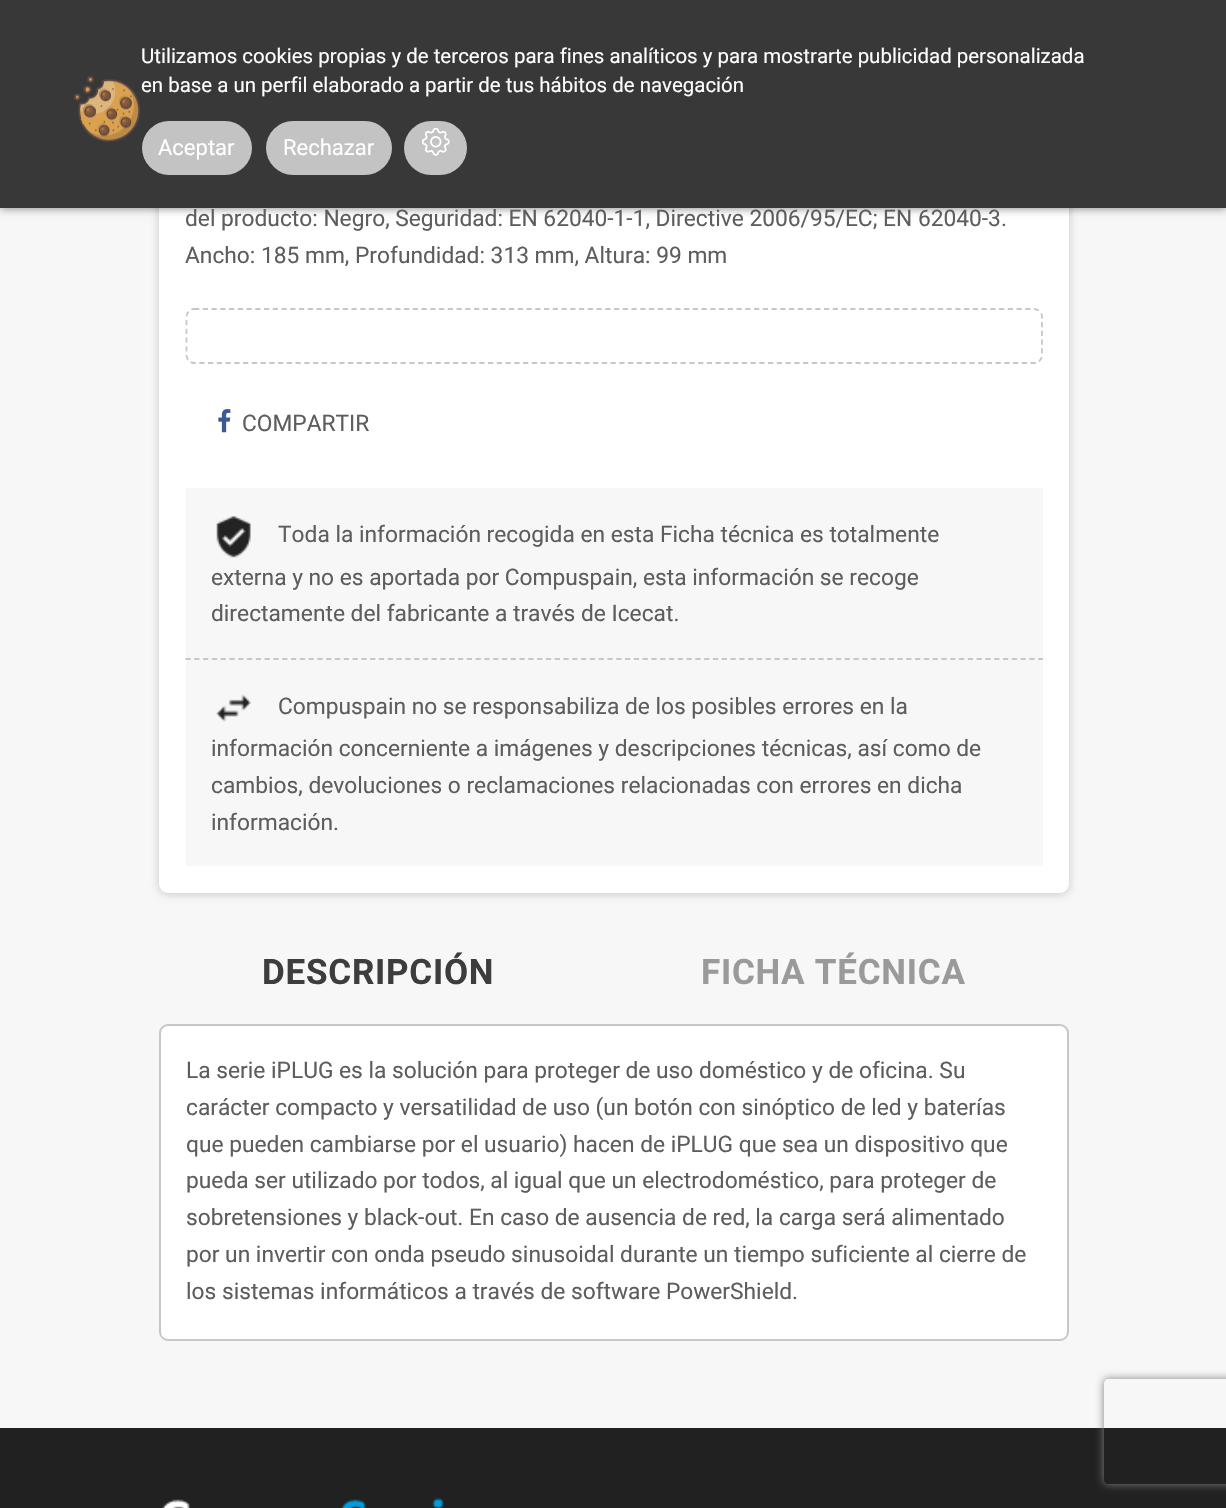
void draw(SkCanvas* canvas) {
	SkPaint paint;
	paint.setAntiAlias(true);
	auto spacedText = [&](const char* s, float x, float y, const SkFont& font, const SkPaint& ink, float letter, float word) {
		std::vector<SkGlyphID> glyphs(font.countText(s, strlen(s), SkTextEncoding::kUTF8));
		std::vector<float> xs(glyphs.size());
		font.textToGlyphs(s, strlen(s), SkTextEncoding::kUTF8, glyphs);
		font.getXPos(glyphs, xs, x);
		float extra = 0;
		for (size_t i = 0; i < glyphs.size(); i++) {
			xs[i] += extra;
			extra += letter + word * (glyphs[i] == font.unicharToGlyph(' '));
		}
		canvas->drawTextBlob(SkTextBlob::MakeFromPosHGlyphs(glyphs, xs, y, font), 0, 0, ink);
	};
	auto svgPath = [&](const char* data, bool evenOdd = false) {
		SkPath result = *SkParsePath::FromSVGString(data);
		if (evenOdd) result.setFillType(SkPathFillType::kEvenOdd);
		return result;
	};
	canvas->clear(0xfff7f7f7);
	paint.setColor(0x33000000);
	paint.setMaskFilter(SkMaskFilter::MakeBlur(kNormal_SkBlurStyle, 4.5));
	canvas->drawRoundRect(SkRect::MakeXYWH(159, -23, 910, 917), 9, 9, paint);
	paint.setMaskFilter(nullptr);
	paint.setColor(0xffffffff);
	canvas->drawRoundRect(SkRect::MakeXYWH(159, -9, 910, 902), 9, 9, paint);
	paint.setColor(0x80000000);
	paint.setMaskFilter(SkMaskFilter::MakeBlur(kNormal_SkBlurStyle, 4.5));
	canvas->drawRect(SkRect::MakeXYWH(0, 0, 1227, 208), paint);
	paint.setMaskFilter(nullptr);
	paint.setColor(0xff383838);
	canvas->drawRect(SkRect::MakeXYWH(0, 0, 1226, 208), paint);
	canvas->drawImageRect(SkImages::DeferredFromEncodedData(SkData::MakeFromFileName("img1.png")), SkRect::MakeXYWH(74, 75, 66, 67), SkSamplingOptions());
	SkFont f1(fontMgr->matchFamilyStyle("Roboto", SkFontStyle::Normal()), 20.45);
	f1.setSubpixel(true);
	paint.setColor(0xffffffff);
	canvas->drawString("Utilizamos cookies propias y de terceros para fines analíticos y para mostrarte publicidad personalizada", 141, 63, f1, paint);
	canvas->drawString("en base a un perfil elaborado a partir de tus hábitos de navegación", 141, 92, f1, paint);
	paint.setColor(0xffc3c3c3);
	canvas->drawRoundRect(SkRect::MakeXYWH(404, 121, 63, 54), 27, 27, paint);
	canvas->drawRoundRect(SkRect::MakeXYWH(142, 121, 110, 54), 27, 27, paint);
	SkFont f2(fontMgr->matchFamilyStyle("Roboto", SkFontStyle::Normal()), 22);
	f2.setSubpixel(true);
	paint.setColor(0xffffffff);
	canvas->drawString("Aceptar", 158, 155, f2, paint);
	paint.setColor(0xffc3c3c3);
	canvas->drawRoundRect(SkRect::MakeXYWH(266, 121, 126, 54), 27, 27, paint);
	paint.setColor(0xffffffff);
	canvas->drawString("Rechazar", 283, 155, f2, paint);
	canvas->drawImageRect(SkImages::DeferredFromEncodedData(SkData::MakeFromFileName("img2.png")), SkRect::MakeXYWH(422, 128, 28, 28), SkSamplingOptions());
	SkFont f3(fontMgr->matchFamilyStyle("Roboto", SkFontStyle::Normal()), 22.75);
	f3.setSubpixel(true);
	paint.setColor(0xff5d5d5d);
	canvas->drawString("del producto: Negro, Seguridad: EN 62040-1-1, Directive 2006/95/EC; EN 62040-3.", 185, 226, f3, paint);
	canvas->drawString("Ancho: 185 mm, Profundidad: 313 mm, Altura: 99 mm", 185, 263, f3, paint);
	paint.setStroke(true);
	paint.setStrokeWidth(1.8);
	paint.setColor(0xffc7c7c7);
	paint.setPathEffect(SkDashPathEffect::Make({{5.25f, 3.5f}}, 0));
	canvas->drawPath(svgPath("M194 309H1034C1038.5 309 1042 312.5 1042 317V355C1042 359.5 1038.5 363 1034 363H194C190 363 186.5 359.5 186.5 355V317C186.5 312.5 190 309 194 309Z"), paint);
	paint.setPathEffect(nullptr);
	canvas->drawImageRect(SkImages::DeferredFromEncodedData(SkData::MakeFromFileName("img3.png")), SkRect::MakeXYWH(218, 409, 13, 24), SkSamplingOptions());
	paint.setStroke(false);
	paint.setColor(0xff5d5d5d);
	canvas->drawString("COMPARTIR", 242, 431, f3, paint);
	paint.setColor(0xfff7f7f7);
	canvas->drawRect(SkRect::MakeXYWH(186, 488, 857, 378), paint);
	canvas->drawImageRect(SkImages::DeferredFromEncodedData(SkData::MakeFromFileName("img4.png")), SkRect::MakeXYWH(216, 516, 35, 42), SkSamplingOptions());
	paint.setColor(0xff5d5d5d);
	canvas->drawString("Toda la información recogida en esta Ficha técnica es totalmente", 278, 542, f3, paint);
	canvas->drawString("externa y no es aportada por Compuspain, esta información se recoge", 211, 585, f3, paint);
	canvas->drawString("directamente del fabricante a través de Icecat.", 211, 621, f3, paint);
	paint.setStroke(true);
	paint.setColor(0xffc7c7c7);
	paint.setPathEffect(SkDashPathEffect::Make({{5.25f, 3.54f}}, 0));
	canvas->drawPath(svgPath("M185.5 659H1043"), paint);
	paint.setPathEffect(nullptr);
	canvas->drawImageRect(SkImages::DeferredFromEncodedData(SkData::MakeFromFileName("img5.png")), SkRect::MakeXYWH(216, 694, 35, 28), SkSamplingOptions());
	paint.setStroke(false);
	paint.setColor(0xff5d5d5d);
	canvas->drawString("Compuspain no se responsabiliza de los posibles errores en la", 278, 714, f3, paint);
	canvas->drawString("información concerniente a imágenes y descripciones técnicas, así como de", 211, 756, f3, paint);
	canvas->drawString("cambios, devoluciones o reclamaciones relacionadas con errores en dicha", 211, 793, f3, paint);
	canvas->drawString("información.", 211, 830, f3, paint);
	SkFont f4(fontMgr->matchFamilyStyle("Roboto", SkFontStyle::Bold()), 35);
	f4.setSubpixel(true);
	paint.setColor(0xff3d3d3d);
	spacedText("DESCRIPCIÓN", 262, 984, f4, paint, 0.75, 0);
	paint.setColor(0xff9a9a9a);
	spacedText("FICHA TÉCNICA", 701, 984, f4, paint, 0.75, 0);
	paint.setColor(0xffffffff);
	canvas->drawRoundRect(SkRect::MakeXYWH(160, 1025, 908, 315), 8, 8, paint);
	paint.setStroke(true);
	paint.setStrokeWidth(2);
	paint.setColor(0xffc7c7c7);
	canvas->drawRoundRect(SkRect::MakeXYWH(160, 1025, 908, 315), 8, 8, paint);
	paint.setStroke(false);
	paint.setColor(0xff5d5d5d);
	canvas->drawString("La serie iPLUG es la solución para proteger de uso doméstico y de oficina. Su", 186, 1078, f3, paint);
	canvas->drawString("carácter compacto y versatilidad de uso (un botón con sinóptico de led y baterías", 186, 1115, f3, paint);
	canvas->drawString("que pueden cambiarse por el usuario) hacen de iPLUG que sea un dispositivo que", 186, 1152, f3, paint);
	canvas->drawString("pueda ser utilizado por todos, al igual que un electrodoméstico, para proteger de", 186, 1188, f3, paint);
	canvas->drawString("sobretensiones y black-out. En caso de ausencia de red, la carga será alimentado", 186, 1225, f3, paint);
	canvas->drawString("por un invertir con onda pseudo sinusoidal durante un tiempo suficiente al cierre de", 186, 1262, f3, paint);
	canvas->drawString("los sistemas informáticos a través de software PowerShield.", 186, 1299, f3, paint);
	paint.setColor(0xff212121);
	canvas->drawRect(SkRect::MakeXYWH(0, 1428, 1226, 80), paint);
	canvas->drawImageRect(SkImages::DeferredFromEncodedData(SkData::MakeFromFileName("img6.png")), SkRect::MakeXYWH(162, 1498, 282, 10), SkSamplingOptions());
	canvas->save();
	canvas->clipPath(svgPath("M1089 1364H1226V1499H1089ZM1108 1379H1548C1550 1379 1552 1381 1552 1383V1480C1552 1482 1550 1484 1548 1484H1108C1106 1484 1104 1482 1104 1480V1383C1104 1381 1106 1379 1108 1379Z", true), true);
	paint.setColor(0xff808080);
	paint.setMaskFilter(SkMaskFilter::MakeBlur(kNormal_SkBlurStyle, 4.5));
	canvas->drawRoundRect(SkRect::MakeXYWH(1104, 1379, 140, 105), 4, 4, paint);
	paint.setMaskFilter(nullptr);
	canvas->restore();
}
